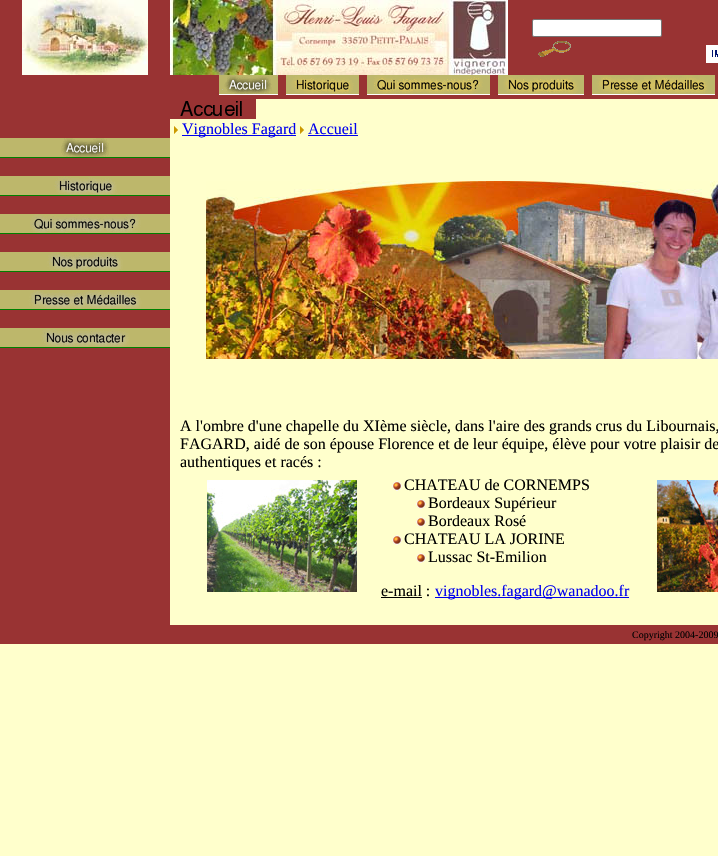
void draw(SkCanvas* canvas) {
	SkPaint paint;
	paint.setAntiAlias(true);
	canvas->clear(0xffffffcc);
	paint.setColor(0xff993333);
	canvas->drawRect(SkRect::MakeXYWH(0, 0, 170, 138), paint);
	canvas->drawImageRect(SkImages::DeferredFromEncodedData(SkData::MakeFromFileName("img1.png")), SkRect::MakeXYWH(22, 0, 126, 75), SkSamplingOptions());
	canvas->drawRect(SkRect::MakeXYWH(508, 0, 210, 75), paint);
	canvas->drawImageRect(SkImages::DeferredFromEncodedData(SkData::MakeFromFileName("img2.png")), SkRect::MakeXYWH(170, 0, 338, 75), SkSamplingOptions());
	paint.setColor(0xffffffff);
	canvas->drawRoundRect(SkRect::MakeXYWH(532.5, 19.5, 129, 17), 1.5, 1.5, paint);
	paint.setStroke(true);
	paint.setStrokeWidth(1);
	paint.setColor(0xff767676);
	canvas->drawRoundRect(SkRect::MakeXYWH(532.5, 19.5, 129, 17), 1.5, 1.5, paint);
	canvas->drawImageRect(SkImages::DeferredFromEncodedData(SkData::MakeFromFileName("img3.png")), SkRect::MakeXYWH(538, 41, 33, 16), SkSamplingOptions());
	canvas->drawImageRect(SkImages::DeferredFromEncodedData(SkData::MakeFromFileName("img4.png")), SkRect::MakeXYWH(706, 45, 12, 18), SkSamplingOptions());
	paint.setStroke(false);
	paint.setColor(0xff993333);
	canvas->drawRect(SkRect::MakeXYWH(170, 75, 548, 24), paint);
	canvas->drawImageRect(SkImages::DeferredFromEncodedData(SkData::MakeFromFileName("img5.png")), SkRect::MakeXYWH(219, 75, 59, 20), SkSamplingOptions());
	canvas->drawImageRect(SkImages::DeferredFromEncodedData(SkData::MakeFromFileName("img6.png")), SkRect::MakeXYWH(286, 75, 73, 20), SkSamplingOptions());
	canvas->drawImageRect(SkImages::DeferredFromEncodedData(SkData::MakeFromFileName("img7.png")), SkRect::MakeXYWH(367, 75, 123, 20), SkSamplingOptions());
	canvas->drawImageRect(SkImages::DeferredFromEncodedData(SkData::MakeFromFileName("img8.png")), SkRect::MakeXYWH(498, 75, 86, 20), SkSamplingOptions());
	canvas->drawImageRect(SkImages::DeferredFromEncodedData(SkData::MakeFromFileName("img9.png")), SkRect::MakeXYWH(592, 75, 123, 20), SkSamplingOptions());
	canvas->drawImageRect(SkImages::DeferredFromEncodedData(SkData::MakeFromFileName("img10.png")), SkRect::MakeXYWH(170, 99, 86, 20), SkSamplingOptions());
	canvas->drawImageRect(SkImages::DeferredFromEncodedData(SkData::MakeFromFileName("img11.png")), SkRect::MakeXYWH(174, 126, 4, 8), SkSamplingOptions());
	paint.setColor(0xff0000ee);
	canvas->drawRect(SkRect::MakeXYWH(182, 135, 114, 1), paint);
	SkFont f1(fontMgr->matchFamilyStyle("Liberation Serif", SkFontStyle::Normal()), 16);
	f1.setSubpixel(true);
	canvas->drawString("Vignobles Fagard", 182, 134, f1, paint);
	canvas->drawImageRect(SkImages::DeferredFromEncodedData(SkData::MakeFromFileName("img11.png")), SkRect::MakeXYWH(300, 126, 4, 8), SkSamplingOptions());
	canvas->drawString("Accueil", 308, 134, f1, paint);
	canvas->drawRect(SkRect::MakeXYWH(308, 135, 50, 1), paint);
	paint.setColor(0xff993333);
	canvas->drawRect(SkRect::MakeXYWH(0, 158, 170, 486), paint);
	canvas->drawImageRect(SkImages::DeferredFromEncodedData(SkData::MakeFromFileName("img12.png")), SkRect::MakeXYWH(0, 138, 170, 20), SkSamplingOptions());
	canvas->drawImageRect(SkImages::DeferredFromEncodedData(SkData::MakeFromFileName("img13.png")), SkRect::MakeXYWH(0, 176, 170, 20), SkSamplingOptions());
	canvas->drawImageRect(SkImages::DeferredFromEncodedData(SkData::MakeFromFileName("img14.png")), SkRect::MakeXYWH(0, 214, 170, 20), SkSamplingOptions());
	canvas->drawImageRect(SkImages::DeferredFromEncodedData(SkData::MakeFromFileName("img15.png")), SkRect::MakeXYWH(0, 252, 170, 20), SkSamplingOptions());
	canvas->drawImageRect(SkImages::DeferredFromEncodedData(SkData::MakeFromFileName("img16.png")), SkRect::MakeXYWH(0, 290, 170, 20), SkSamplingOptions());
	canvas->drawImageRect(SkImages::DeferredFromEncodedData(SkData::MakeFromFileName("img17.png")), SkRect::MakeXYWH(0, 328, 170, 20), SkSamplingOptions());
	canvas->drawImageRect(SkImages::DeferredFromEncodedData(SkData::MakeFromFileName("img18.png")), SkRect::MakeXYWH(206, 181, 512, 178), SkSamplingOptions());
	paint.setColor(0xff000000);
	canvas->drawString("A l'ombre d'une chapelle du XIème siècle, dans l'aire des grands crus du Libournais,", 180, 431, f1, paint);
	canvas->drawString("FAGARD, aidé de son épouse Florence et de leur équipe, élève pour votre plaisir de", 180, 449, f1, paint);
	canvas->drawString("authentiques et racés :", 180, 467, f1, paint);
	canvas->drawImageRect(SkImages::DeferredFromEncodedData(SkData::MakeFromFileName("img19.png")), SkRect::MakeXYWH(207, 480, 150, 112), SkSamplingOptions());
	canvas->drawImageRect(SkImages::DeferredFromEncodedData(SkData::MakeFromFileName("img20.png")), SkRect::MakeXYWH(392, 481, 10, 10), SkSamplingOptions());
	canvas->drawString("CHATEAU de CORNEMPS", 404, 490, f1, paint);
	canvas->drawImageRect(SkImages::DeferredFromEncodedData(SkData::MakeFromFileName("img20.png")), SkRect::MakeXYWH(416, 499, 10, 10), SkSamplingOptions());
	canvas->drawString("Bordeaux Supérieur", 428, 508, f1, paint);
	canvas->drawImageRect(SkImages::DeferredFromEncodedData(SkData::MakeFromFileName("img20.png")), SkRect::MakeXYWH(416, 517, 10, 10), SkSamplingOptions());
	canvas->drawString("Bordeaux Rosé", 428, 526, f1, paint);
	canvas->drawImageRect(SkImages::DeferredFromEncodedData(SkData::MakeFromFileName("img20.png")), SkRect::MakeXYWH(392, 535, 10, 10), SkSamplingOptions());
	canvas->drawString("CHATEAU LA JORINE", 404, 544, f1, paint);
	canvas->drawImageRect(SkImages::DeferredFromEncodedData(SkData::MakeFromFileName("img20.png")), SkRect::MakeXYWH(416, 553, 10, 10), SkSamplingOptions());
	canvas->drawString("Lussac St-Emilion", 428, 562, f1, paint);
	canvas->drawString("e-mail :", 381, 596, f1, paint);
	canvas->drawRect(SkRect::MakeXYWH(381, 597, 41, 1), paint);
	paint.setColor(0xff0000ee);
	canvas->drawRect(SkRect::MakeXYWH(435, 597, 194, 1), paint);
	canvas->drawString("vignobles.fagard@wanadoo.fr", 435, 596, f1, paint);
	canvas->drawImageRect(SkImages::DeferredFromEncodedData(SkData::MakeFromFileName("img21.png")), SkRect::MakeXYWH(657, 480, 61, 112), SkSamplingOptions());
	paint.setColor(0xff993333);
	canvas->drawRect(SkRect::MakeXYWH(170, 625, 548, 19), paint);
	SkFont f2(fontMgr->matchFamilyStyle("Liberation Serif", SkFontStyle::Normal()), 10);
	f2.setSubpixel(true);
	paint.setColor(0xff000000);
	canvas->drawString("Copyright 2004-2009", 632, 638, f2, paint);
}
